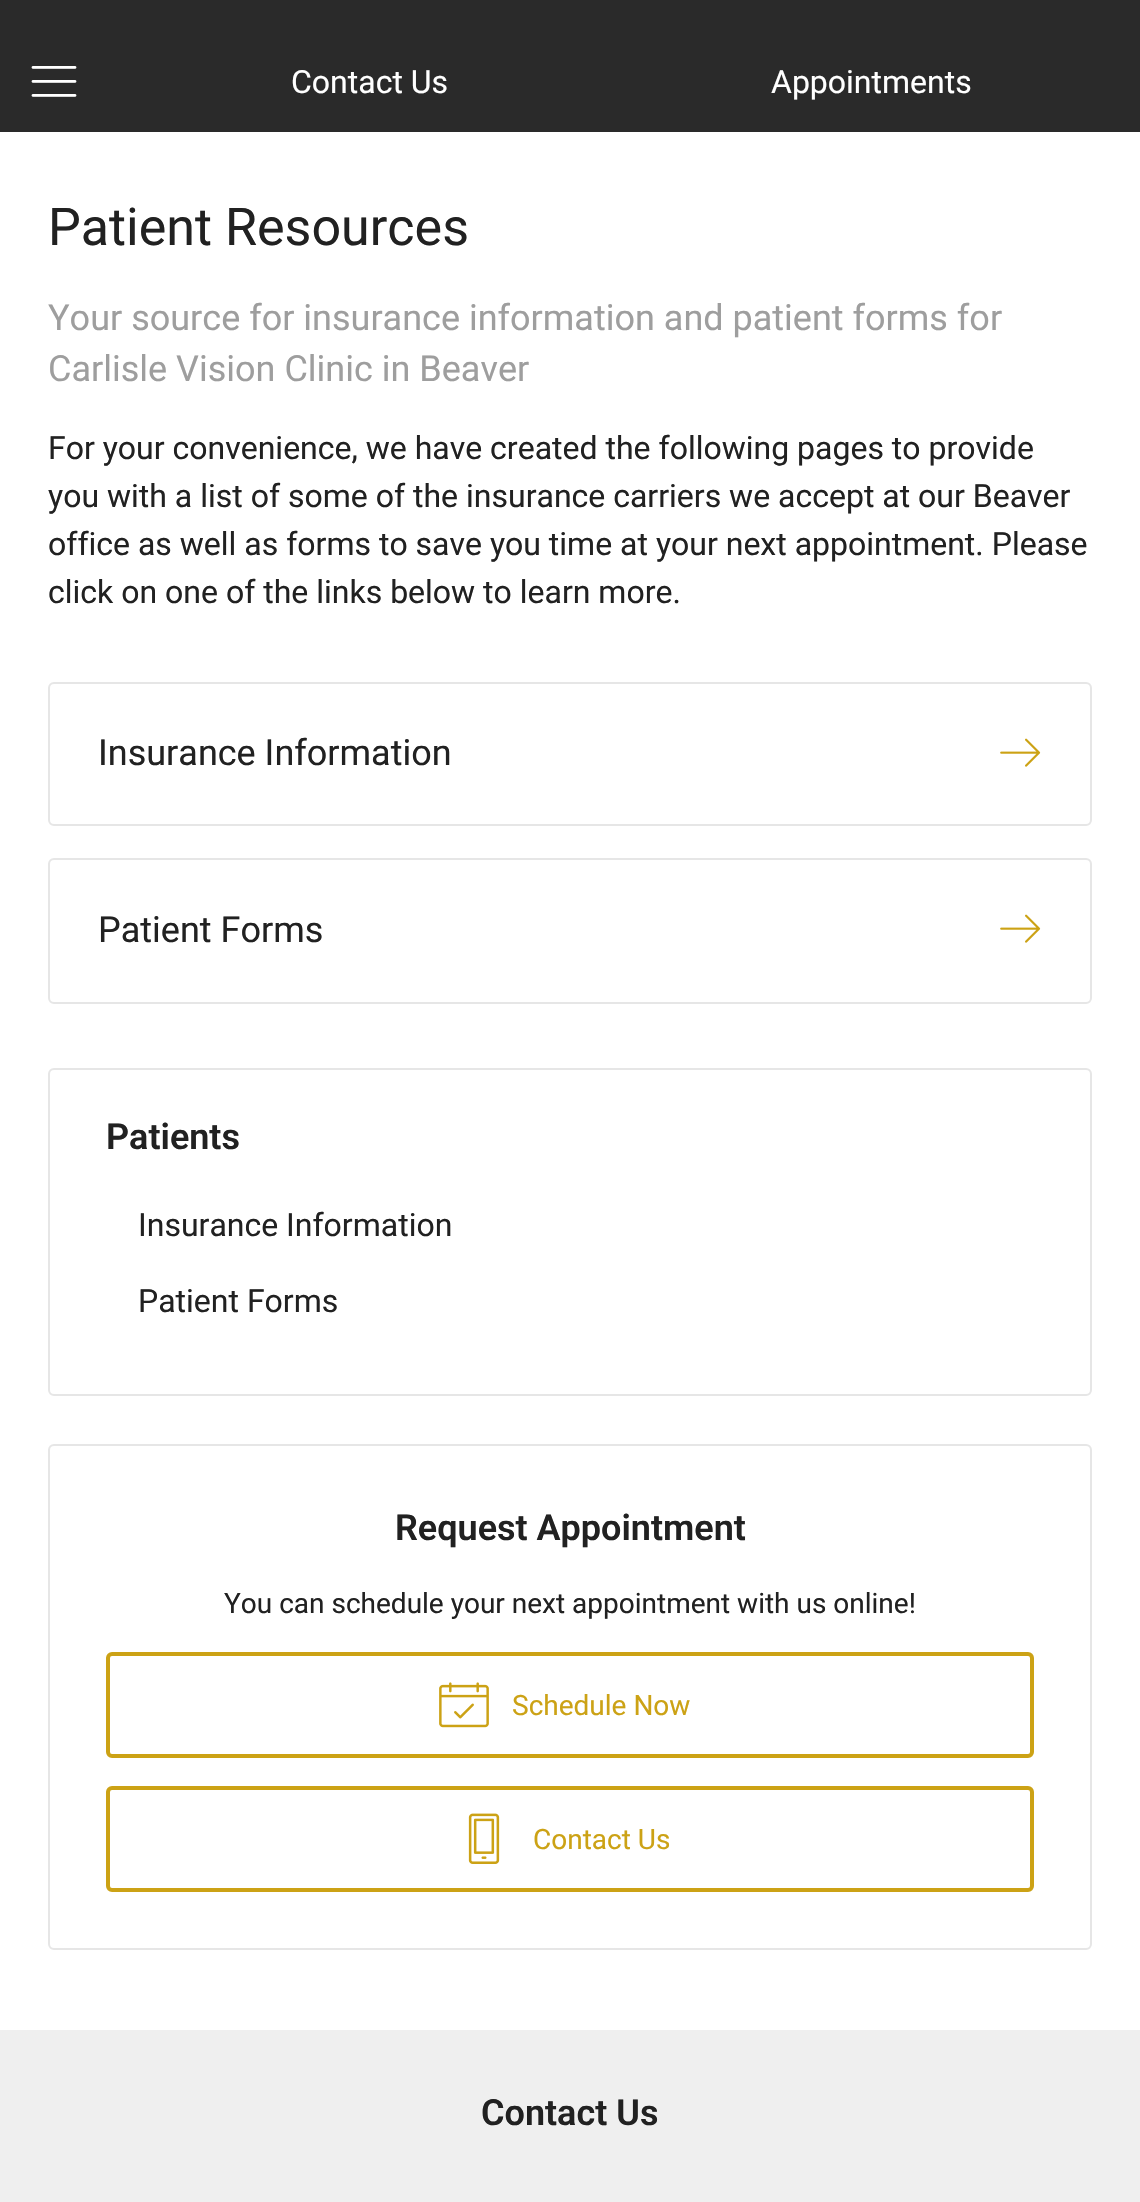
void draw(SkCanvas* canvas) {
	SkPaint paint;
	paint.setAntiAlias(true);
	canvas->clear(0xffefefef);
	paint.setColor(0xff2a2a2a);
	canvas->drawRect(SkRect::MakeXYWH(0, 0, 1140, 132), paint);
	canvas->drawImageRect(SkImages::DeferredFromEncodedData(SkData::MakeFromFileName("img1.png")), SkRect::MakeXYWH(31, 66, 46, 31), SkSamplingOptions());
	SkFont f1(fontMgr->matchFamilyStyle("Roboto", SkFontStyle::Normal()), 32);
	f1.setSubpixel(true);
	paint.setColor(0xffffffff);
	canvas->drawString("Contact Us", 291, 93, f1, paint);
	canvas->drawString("Appointments", 771, 93, f1, paint);
	canvas->drawRect(SkRect::MakeXYWH(0, 132, 1140, 1898), paint);
	SkFont f2(fontMgr->matchFamilyStyle("Roboto", SkFontStyle::Normal()), 52);
	f2.setSubpixel(true);
	paint.setColor(0xff212121);
	canvas->drawString("Patient Resources", 48, 245, f2, paint);
	SkFont f3(fontMgr->matchFamilyStyle("Roboto", SkFontStyle::Normal()), 36);
	f3.setSubpixel(true);
	paint.setColor(0xff9e9e9e);
	canvas->drawString("Your source for insurance information and patient forms for", 48, 330, f3, paint);
	canvas->drawString("Carlisle Vision Clinic in Beaver", 48, 381, f3, paint);
	paint.setColor(0xff212121);
	canvas->drawString("For your convenience, we have created the following pages to provide", 48, 459, f1, paint);
	canvas->drawString("you with a list of some of the insurance carriers we accept at our Beaver", 48, 507, f1, paint);
	canvas->drawString("office as well as forms to save you time at your next appointment. Please", 48, 555, f1, paint);
	canvas->drawString("click on one of the links below to learn more.", 48, 603, f1, paint);
	paint.setStroke(true);
	paint.setStrokeWidth(2);
	paint.setColor(0xffe6e6e6);
	canvas->drawRoundRect(SkRect::MakeXYWH(49, 683, 1042, 142), 5, 5, paint);
	paint.setStroke(false);
	paint.setColor(0xff212121);
	canvas->drawString("Insurance Information", 98, 765, f3, paint);
	canvas->drawImageRect(SkImages::DeferredFromEncodedData(SkData::MakeFromFileName("img2.png")), SkRect::MakeXYWH(1000, 738, 41, 29), SkSamplingOptions());
	paint.setStroke(true);
	paint.setColor(0xffe6e6e6);
	canvas->drawRoundRect(SkRect::MakeXYWH(49, 859, 1042, 144), 5, 5, paint);
	paint.setStroke(false);
	paint.setColor(0xff212121);
	canvas->drawString("Patient Forms", 98, 942, f3, paint);
	canvas->drawImageRect(SkImages::DeferredFromEncodedData(SkData::MakeFromFileName("img2.png")), SkRect::MakeXYWH(1000, 914, 41, 29), SkSamplingOptions());
	paint.setStroke(true);
	paint.setColor(0xffe6e6e6);
	canvas->drawRoundRect(SkRect::MakeXYWH(49, 1069, 1042, 326), 5, 5, paint);
	SkFont f4(fontMgr->matchFamilyStyle("Roboto", SkFontStyle(600, SkFontStyle::kNormal_Width, SkFontStyle::kUpright_Slant)), 36);
	f4.setSubpixel(true);
	paint.setStroke(false);
	paint.setColor(0xff212121);
	canvas->drawString("Patients", 106, 1149, f4, paint);
	canvas->drawString("Insurance Information", 138, 1236, f1, paint);
	canvas->drawString("Patient Forms", 138, 1312, f1, paint);
	paint.setStroke(true);
	paint.setColor(0xffe6e6e6);
	canvas->drawRoundRect(SkRect::MakeXYWH(49, 1445, 1042, 504), 5, 5, paint);
	paint.setStroke(false);
	paint.setColor(0xff212121);
	canvas->drawString("Request Appointment", 395, 1540, f4, paint);
	SkFont f5(fontMgr->matchFamilyStyle("Roboto", SkFontStyle::Normal()), 28);
	f5.setSubpixel(true);
	canvas->drawString("You can schedule your next appointment with us online!", 224, 1613, f5, paint);
	paint.setStroke(true);
	paint.setStrokeWidth(4);
	paint.setColor(0xffcca215);
	canvas->drawRoundRect(SkRect::MakeXYWH(108, 1654, 924, 102), 4, 4, paint);
	canvas->drawImageRect(SkImages::DeferredFromEncodedData(SkData::MakeFromFileName("img3.png")), SkRect::MakeXYWH(439, 1682, 50, 46), SkSamplingOptions());
	paint.setStroke(false);
	canvas->drawString("Schedule Now", 512, 1715, f5, paint);
	paint.setStroke(true);
	canvas->drawRoundRect(SkRect::MakeXYWH(108, 1788, 924, 102), 4, 4, paint);
	canvas->drawImageRect(SkImages::DeferredFromEncodedData(SkData::MakeFromFileName("img4.png")), SkRect::MakeXYWH(468, 1813, 32, 51), SkSamplingOptions());
	paint.setStroke(false);
	canvas->drawString("Contact Us", 533, 1849, f5, paint);
	paint.setColor(0xff212121);
	canvas->drawString("Contact Us", 481, 2125, f4, paint);
}
